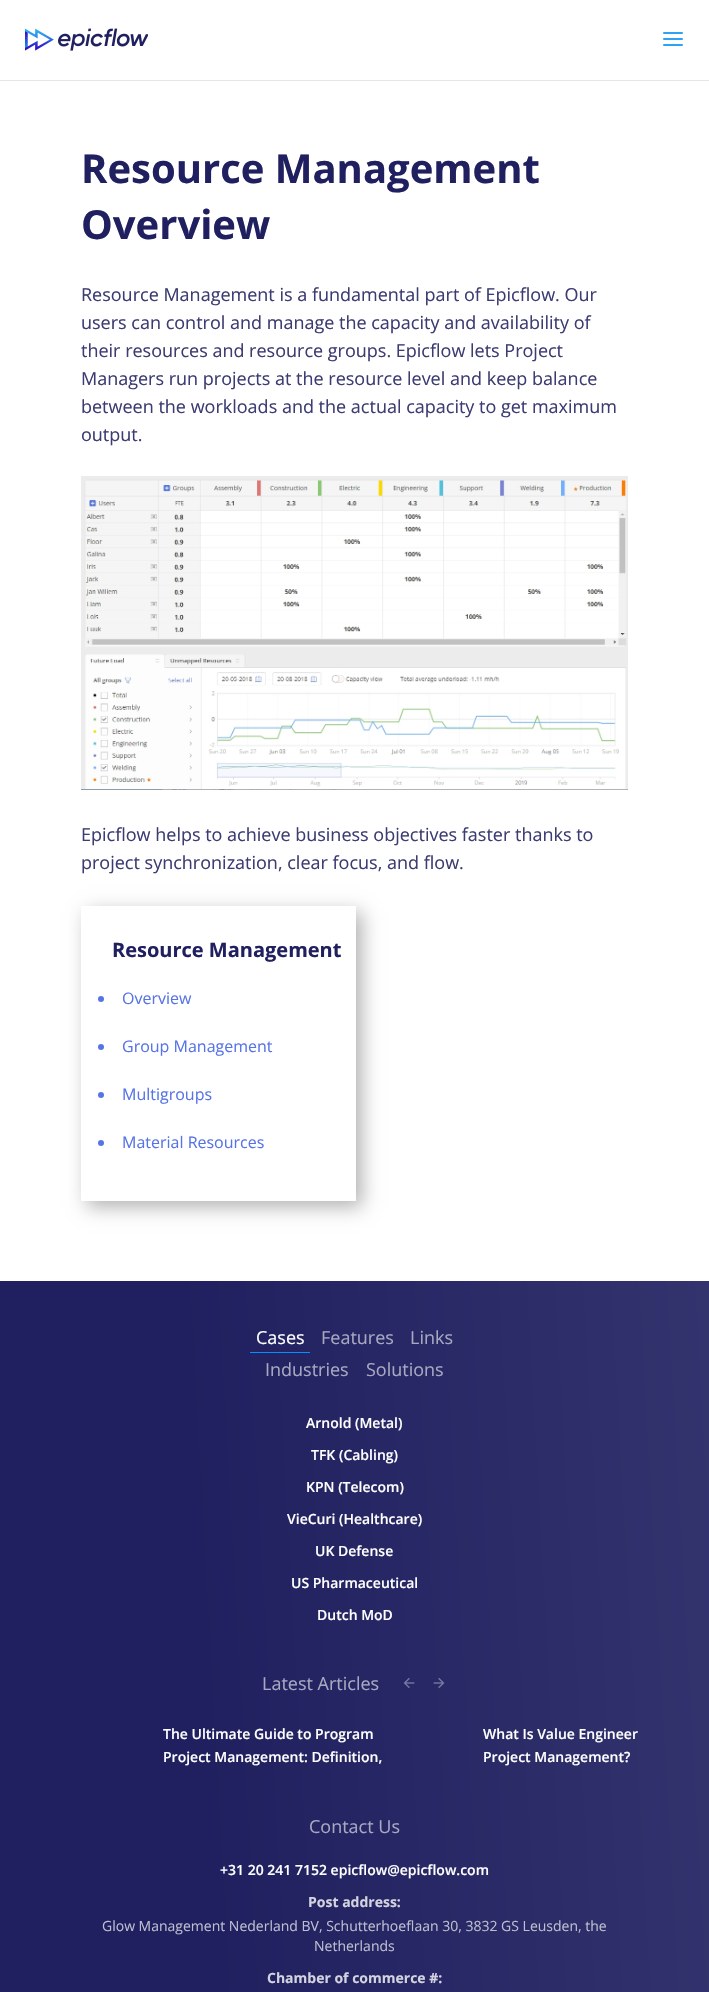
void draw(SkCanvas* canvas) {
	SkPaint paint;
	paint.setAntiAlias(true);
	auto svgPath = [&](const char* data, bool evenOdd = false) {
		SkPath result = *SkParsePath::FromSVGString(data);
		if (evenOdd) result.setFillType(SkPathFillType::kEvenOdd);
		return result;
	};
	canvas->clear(0xffffffff);
	paint.setColor(0xffe6e6e6);
	canvas->drawRect(SkRect::MakeXYWH(0, 80, 709, 1), paint);
	canvas->drawImageRect(SkImages::DeferredFromEncodedData(SkData::MakeFromFileName("img1.png")), SkRect::MakeXYWH(25, 28, 123, 23), SkSamplingOptions());
	canvas->drawImageRect(SkImages::DeferredFromEncodedData(SkData::MakeFromFileName("img2.png")), SkRect::MakeXYWH(663, 32, 20, 14), SkSamplingOptions());
	SkFont f1(fontMgr->matchFamilyStyle("Open Sans", SkFontStyle::Bold()), 40);
	f1.setSubpixel(true);
	paint.setColor(0xff202060);
	canvas->drawString("Resource Management", 81, 183, f1, paint);
	canvas->drawString("Overview", 81, 239, f1, paint);
	SkFont f2(fontMgr->matchFamilyStyle("Open Sans", SkFontStyle::Normal()), 18);
	f2.setSubpixel(true);
	paint.setColor(0xff3c3c73);
	canvas->drawString("Resource Management is a fundamental part of Epicflow. Our", 81, 301, f2, paint);
	canvas->drawString("users can control and manage the capacity and availability of", 81, 329, f2, paint);
	canvas->drawString("their resources and resource groups. Epicflow lets Project", 81, 357, f2, paint);
	canvas->drawString("Managers run projects at the resource level and keep balance", 81, 385, f2, paint);
	canvas->drawString("between the workloads and the actual capacity to get maximum", 81, 413, f2, paint);
	canvas->drawString("output.", 81, 441, f2, paint);
	canvas->drawImageRect(SkImages::DeferredFromEncodedData(SkData::MakeFromFileName("img3.png")), SkRect::MakeXYWH(81, 476, 547, 314), SkSamplingOptions());
	canvas->drawString("Epicflow helps to achieve business objectives faster thanks to", 81, 841, f2, paint);
	canvas->drawString("project synchronization, clear focus, and flow.", 81, 869, f2, paint);
	canvas->save();
	canvas->clipPath(svgPath("M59 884H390V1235H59ZM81 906H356V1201H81Z", true), true);
	paint.setColor(0x4d000000);
	paint.setMaskFilter(SkMaskFilter::MakeBlur(kNormal_SkBlurStyle, 9));
	canvas->drawRect(SkRect::MakeXYWH(87, 912, 275, 295), paint);
	paint.setMaskFilter(nullptr);
	canvas->restore();
	SkFont f3(fontMgr->matchFamilyStyle("Open Sans", SkFontStyle::Bold()), 20);
	f3.setSubpixel(true);
	paint.setColor(0xff202060);
	canvas->drawString("Resource Management", 112, 957, f3, paint);
	paint.setColor(0xff5774e7);
	canvas->drawCircle(101, 999, 3, paint);
	SkFont f4(fontMgr->matchFamilyStyle("Open Sans", SkFontStyle::Normal()), 16);
	f4.setSubpixel(true);
	canvas->drawString("Overview", 122, 1004, f4, paint);
	canvas->drawCircle(101, 1047, 3, paint);
	canvas->drawString("Group Management", 122, 1052, f4, paint);
	canvas->drawCircle(101, 1095, 3, paint);
	canvas->drawString("Multigroups", 122, 1100, f4, paint);
	canvas->drawCircle(101, 1143, 3, paint);
	canvas->drawString("Material Resources", 122, 1148, f4, paint);
	{
		const SkColor colors[] = {0xff202060, 0xff202060, 0xff33336e};
		const float stops[] = {0, 0.34, 1};
		const SkPoint ends[] = {{-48, 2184}, {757, 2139}};
		paint.setShader(SkGradientShader::MakeLinear(ends, colors, stops, 3, SkTileMode::kClamp));
		paint.setAlpha(255);
	}
	canvas->drawRect(SkRect::MakeXYWH(0, 1281, 709, 711), paint);
	paint.setShader(nullptr);
	paint.setColor(0xff0090ff);
	canvas->drawRect(SkRect::MakeXYWH(250, 1352, 60, 1), paint);
	paint.setColor(0xffffffff);
	canvas->drawString("Cases", 256, 1344, f2, paint);
	paint.setColor(0xffa8a8c1);
	canvas->drawString("Features", 321, 1344, f2, paint);
	canvas->drawString("Links", 410, 1344, f2, paint);
	canvas->drawString("Industries", 265, 1376, f2, paint);
	canvas->drawString("Solutions", 366, 1376, f2, paint);
	SkFont f5(fontMgr->matchFamilyStyle("Open Sans", SkFontStyle(600, SkFontStyle::kNormal_Width, SkFontStyle::kUpright_Slant)), 14);
	f5.setSubpixel(true);
	paint.setColor(0xffffffff);
	canvas->drawString("Arnold (Metal)", 306, 1428, f5, paint);
	canvas->drawString("TFK (Cabling)", 311, 1460, f5, paint);
	canvas->drawString("KPN (Telecom)", 306, 1492, f5, paint);
	canvas->drawString("VieCuri (Healthcare)", 287, 1524, f5, paint);
	canvas->drawString("UK Defense", 315, 1556, f5, paint);
	canvas->drawString("US Pharmaceutical", 291, 1588, f5, paint);
	canvas->drawString("Dutch MoD", 317, 1620, f5, paint);
	paint.setColor(0xffa8a8c1);
	canvas->drawString("Latest Articles", 262, 1690, f2, paint);
	canvas->drawImageRect(SkImages::DeferredFromEncodedData(SkData::MakeFromFileName("img4.png")), SkRect::MakeXYWH(403, 1678, 12, 10), SkSamplingOptions());
	canvas->drawImageRect(SkImages::DeferredFromEncodedData(SkData::MakeFromFileName("img5.png")), SkRect::MakeXYWH(433, 1678, 12, 10), SkSamplingOptions());
	paint.setColor(0xffffffff);
	canvas->drawString("The Ultimate Guide to Program", 163, 1739, f5, paint);
	canvas->drawString("Project Management: Definition,", 163, 1762, f5, paint);
	canvas->drawString("What Is Value Engineer", 483, 1739, f5, paint);
	canvas->drawString("Project Management?", 483, 1762, f5, paint);
	paint.setColor(0xffa8a8c1);
	canvas->drawString("Contact Us", 309, 1833, f2, paint);
	paint.setColor(0xffffffff);
	canvas->drawString("+31 20 241 7152 epicflow@epicflow.com", 220, 1875, f5, paint);
	SkFont f6(fontMgr->matchFamilyStyle("Open Sans", SkFontStyle::Bold()), 14);
	f6.setSubpixel(true);
	paint.setColor(0xffd3d3e0);
	canvas->drawString("Post address:", 308, 1907, f6, paint);
	SkFont f7(fontMgr->matchFamilyStyle("Open Sans", SkFontStyle::Normal()), 14);
	f7.setSubpixel(true);
	paint.setColor(0xffbebed0);
	canvas->drawString("Glow Management Nederland BV, Schutterhoeflaan 30, 3832 GS Leusden, the", 102, 1931, f7, paint);
	canvas->drawString("Netherlands", 314, 1951, f7, paint);
	paint.setColor(0xffd3d3e0);
	canvas->drawString("Chamber of commerce #:", 267, 1983, f6, paint);
}
